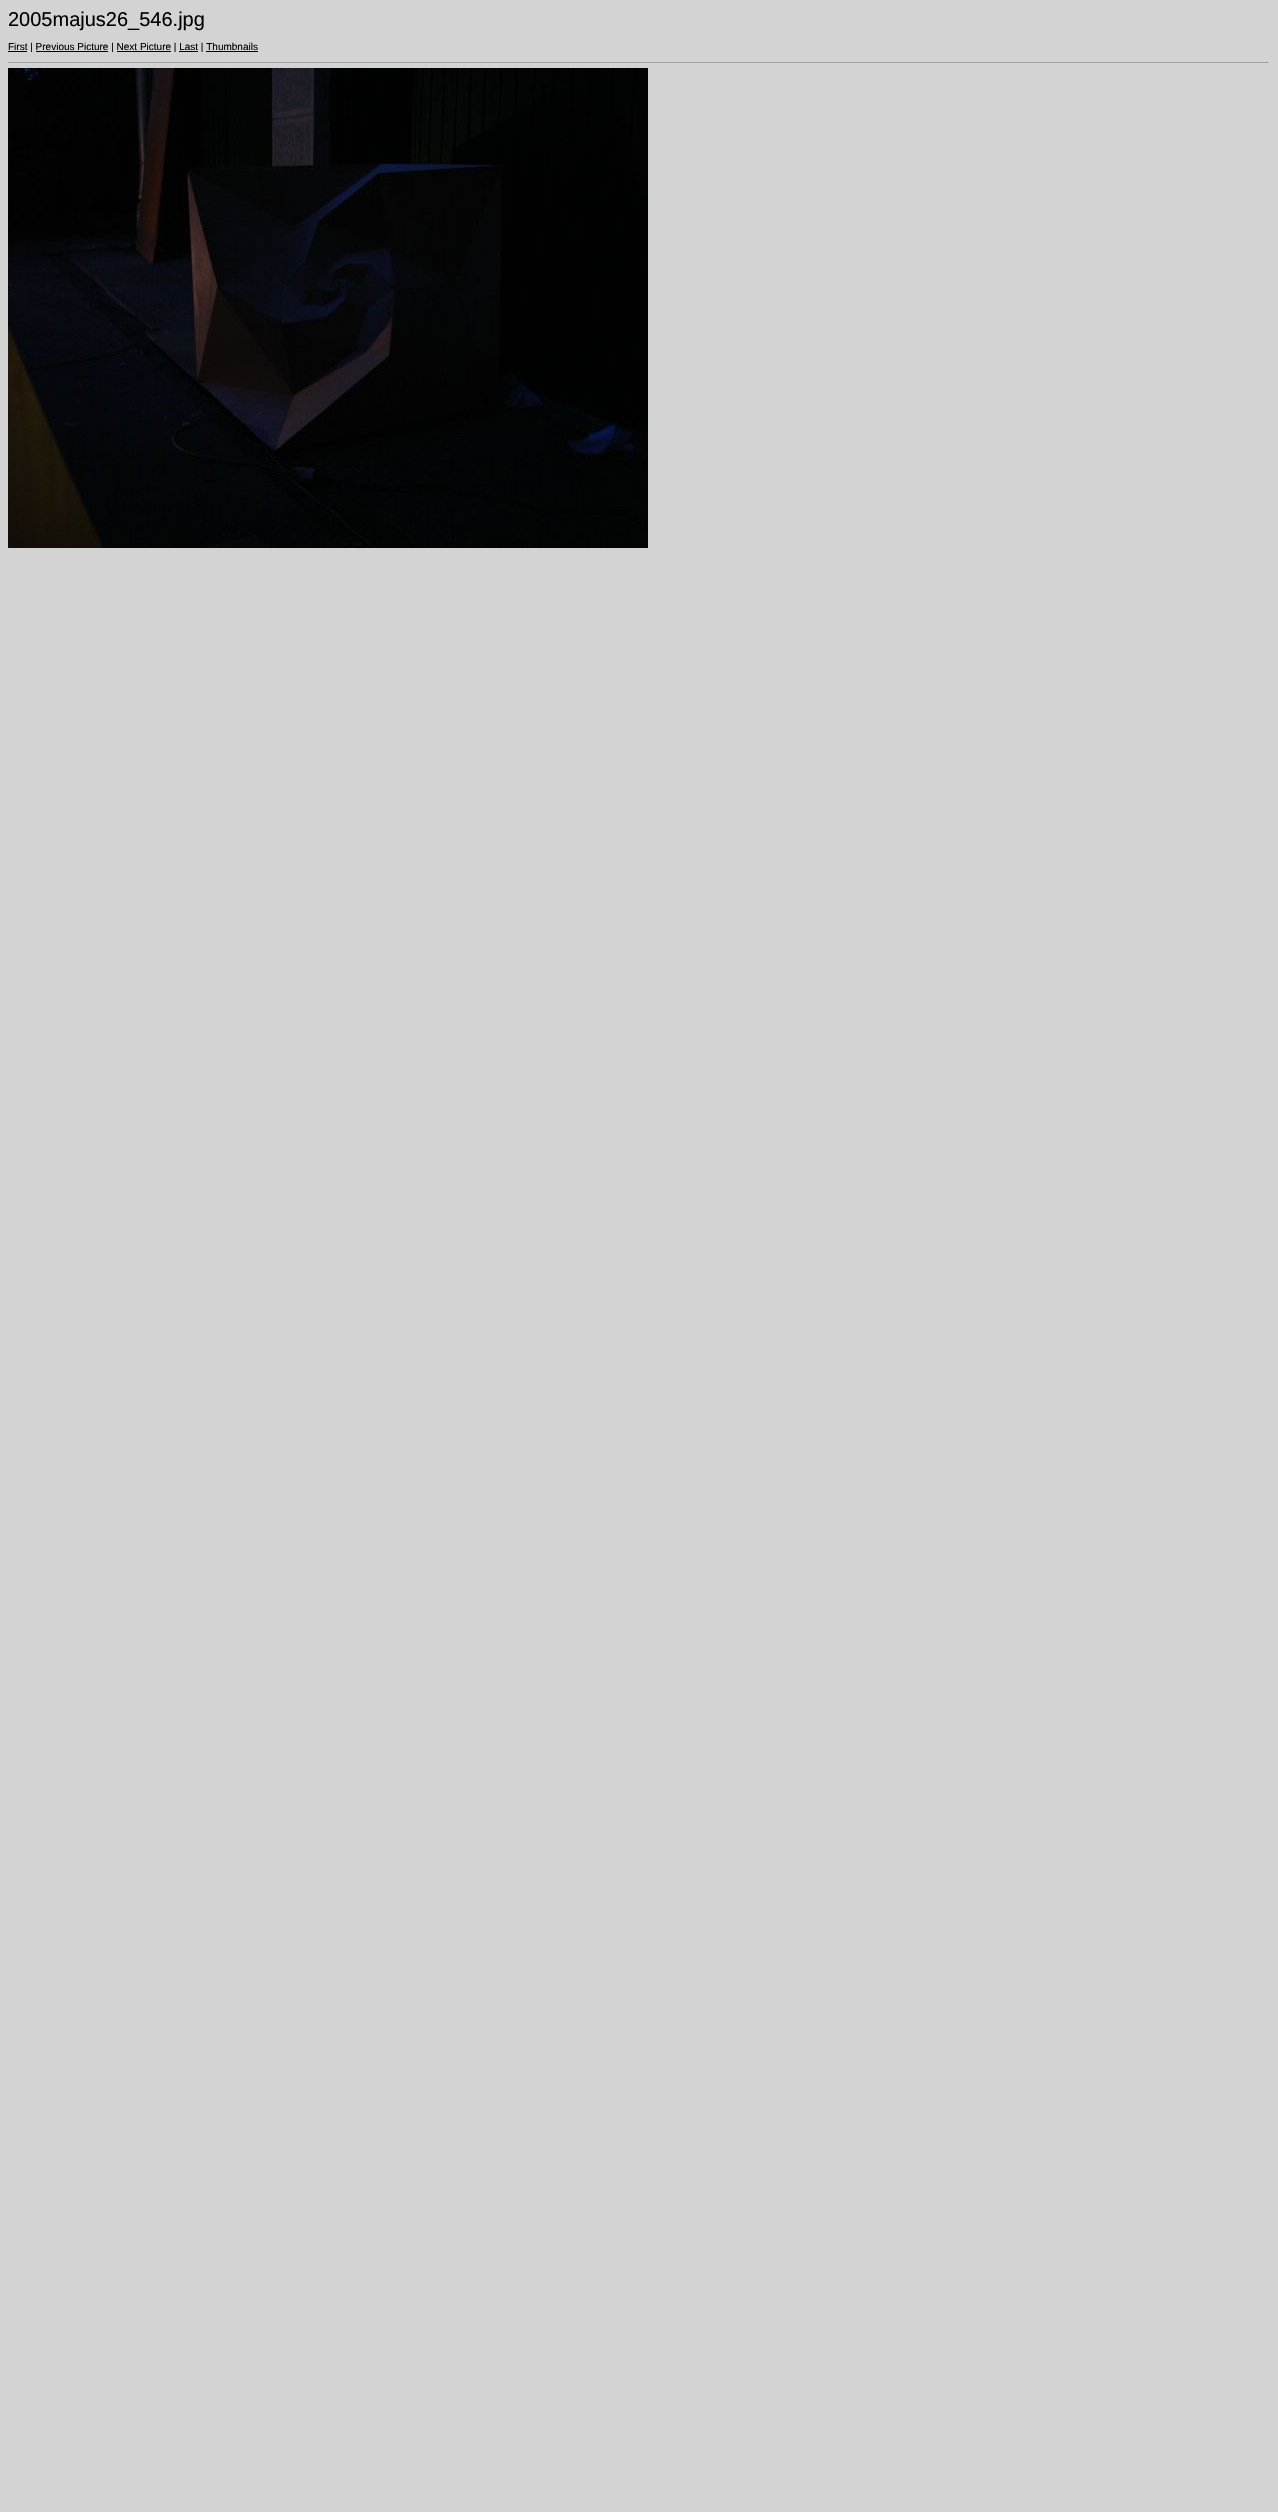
void draw(SkCanvas* canvas) {
	SkPaint paint;
	paint.setAntiAlias(true);
	canvas->clear(0xffd3d3d3);
	SkFont f1(fontMgr->matchFamilyStyle("Liberation Sans", SkFontStyle::Normal()), 20);
	f1.setSubpixel(true);
	paint.setColor(0xff000000);
	canvas->drawString("2005majus26_546.jpg", 8, 26, f1, paint);
	canvas->drawRect(SkRect::MakeXYWH(8, 51, 19, 1), paint);
	SkFont f2(fontMgr->matchFamilyStyle("Liberation Sans", SkFontStyle::Normal()), 10);
	f2.setSubpixel(true);
	canvas->drawString("First | Previous Picture | Next Picture | Last | Thumbnails", 8, 50, f2, paint);
	canvas->drawRect(SkRect::MakeXYWH(36, 51, 72, 1), paint);
	canvas->drawRect(SkRect::MakeXYWH(117, 51, 54, 1), paint);
	canvas->drawRect(SkRect::MakeXYWH(179, 51, 19, 1), paint);
	canvas->drawRect(SkRect::MakeXYWH(206, 51, 52, 1), paint);
	paint.setColor(0xff9f9f9f);
	canvas->drawRect(SkRect::MakeXYWH(8, 62, 1262, 1), paint);
	paint.setColor(0xffeeeeee);
	canvas->drawRect(SkRect::MakeXYWH(1269, 62, 1, 1), paint);
	canvas->drawImageRect(SkImages::DeferredFromEncodedData(SkData::MakeFromFileName("img1.png")), SkRect::MakeXYWH(8, 68, 640, 480), SkSamplingOptions());
}
